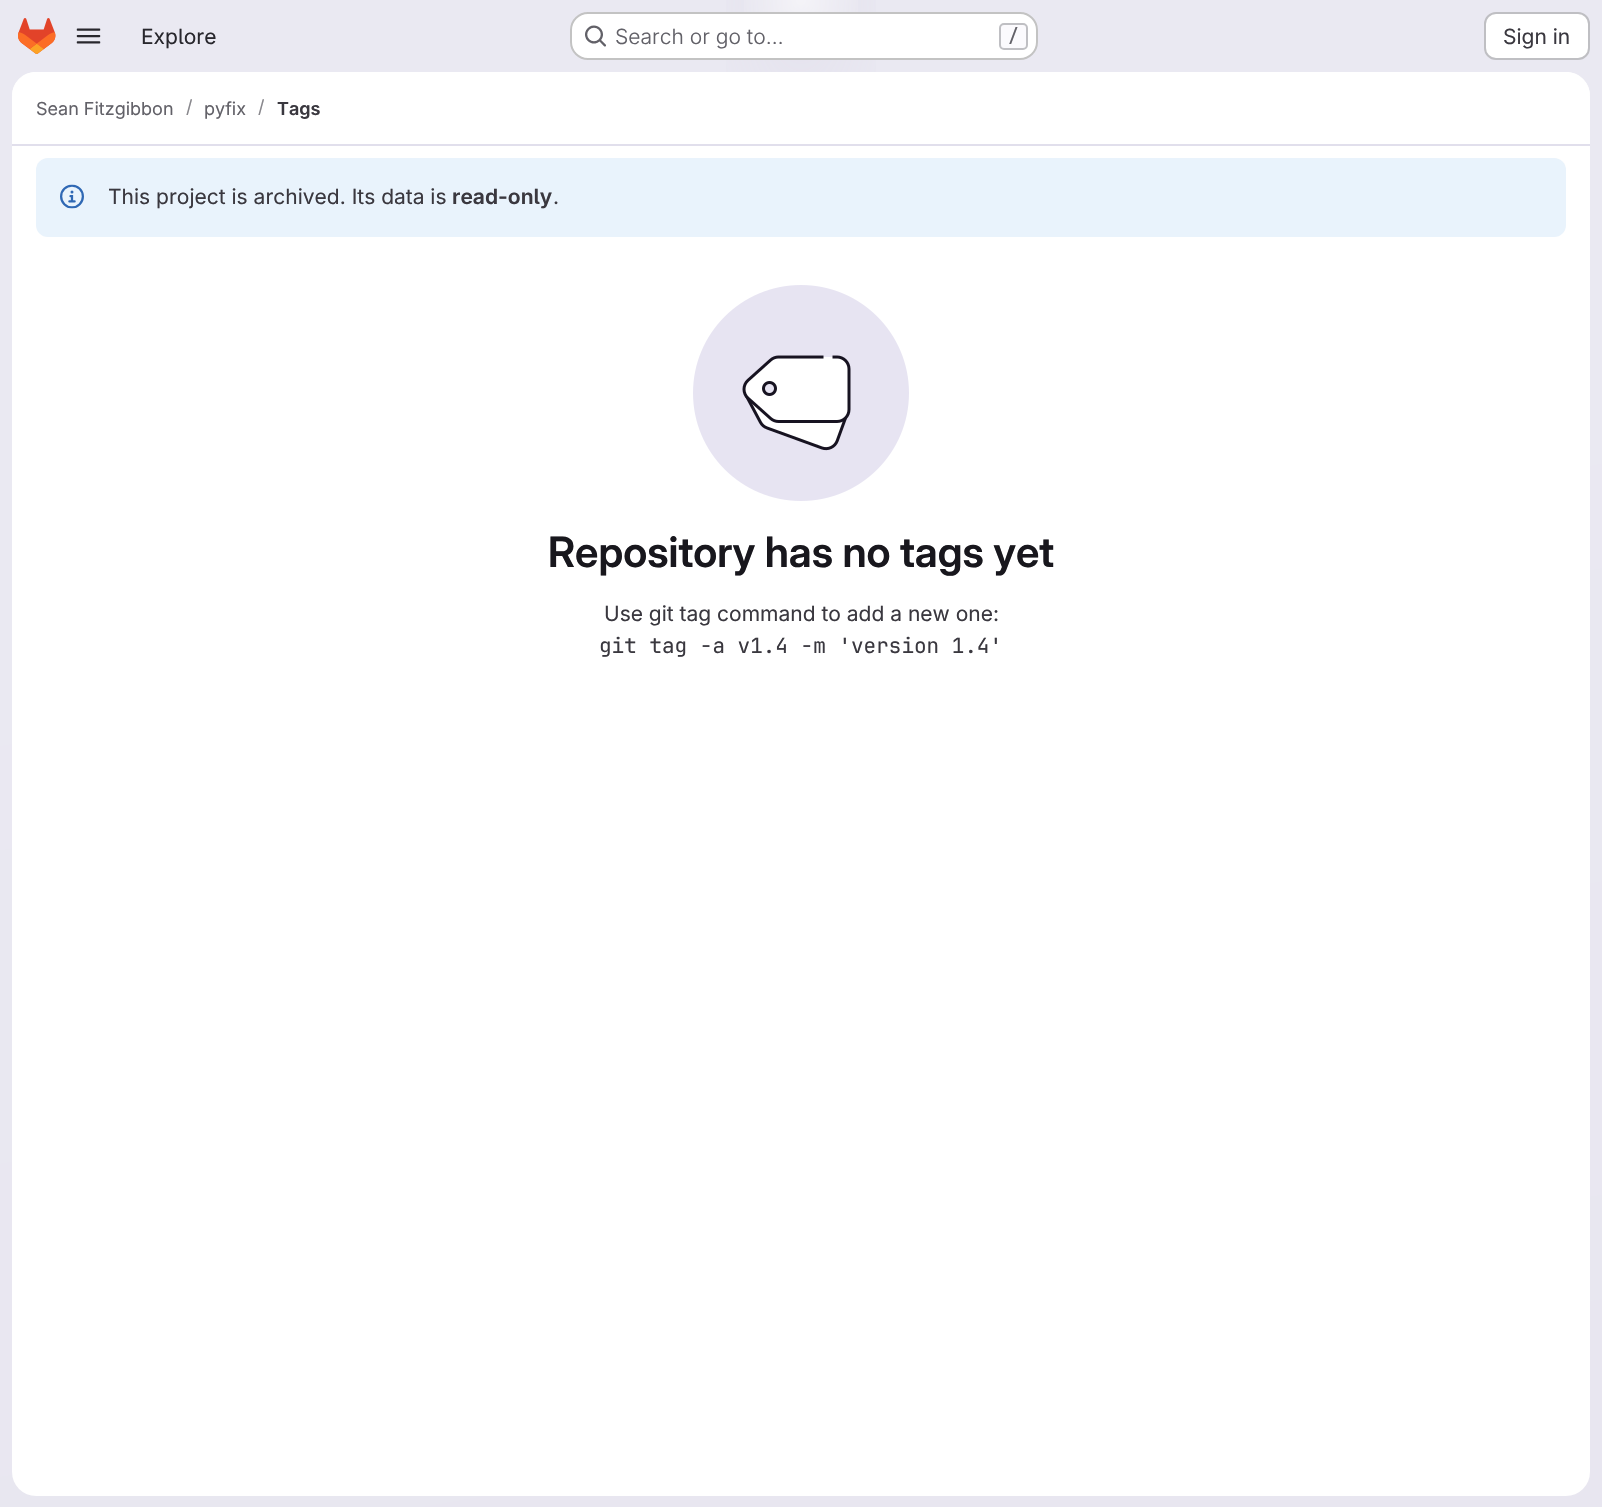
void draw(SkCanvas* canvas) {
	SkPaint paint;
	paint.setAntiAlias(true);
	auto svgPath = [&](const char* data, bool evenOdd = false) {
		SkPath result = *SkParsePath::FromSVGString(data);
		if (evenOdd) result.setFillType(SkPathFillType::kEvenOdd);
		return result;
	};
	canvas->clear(0xffffffff);
	{
		const SkColor colors[] = {0xffe8e6f0, 0xffeae9f2};
		const float stops[] = {0, 0.7};
		const SkPoint ends[] = {{954, 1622}, {648, -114}};
		paint.setShader(SkGradientShader::MakeLinear(ends, colors, stops, 2, SkTileMode::kClamp));
		paint.setAlpha(255);
	}
	canvas->drawRect(SkRect::MakeXYWH(0, 0, 1602, 1507), paint);
	{
		const SkColor colors[] = {0xffe4e2ed, 0x00e4e2ed};
		const float stops[] = {0, 0.13};
		SkMatrix m = SkMatrix::Translate(801, 0).preScale(801, 1508);
		paint.setShader(SkGradientShader::MakeRadial({0, 0}, 1, colors, stops, 2, SkTileMode::kClamp, 0, &m));
		paint.setAlpha(255);
	}
	canvas->drawRect(SkRect::MakeXYWH(726, 0, 150, 72), paint);
	{
		const SkColor colors[] = {0xffe4e2ec, 0x00e4e2ec};
		const float stops[] = {0, 0.09};
		SkMatrix m = SkMatrix::Translate(801, 0).preScale(801, 1508);
		paint.setShader(SkGradientShader::MakeRadial({0, 0}, 1, colors, stops, 2, SkTileMode::kClamp, 0, &m));
		paint.setAlpha(255);
	}
	canvas->drawRect(SkRect::MakeXYWH(775, 20, 52, 36), paint);
	{
		const SkColor colors[] = {0x99ffffff, 0x00ffffff};
		const float stops[] = {0, 0.04};
		paint.setShader(SkGradientShader::MakeRadial({801, 0}, 1707, colors, stops, 2, SkTileMode::kClamp));
		paint.setAlpha(255);
	}
	canvas->drawRect(SkRect::MakeXYWH(744, 0, 114, 12), paint);
	canvas->drawImageRect(SkImages::DeferredFromEncodedData(SkData::MakeFromFileName("img1.png")), SkRect::MakeXYWH(18, 18, 38, 36), SkSamplingOptions());
	canvas->drawImageRect(SkImages::DeferredFromEncodedData(SkData::MakeFromFileName("img2.png")), SkRect::MakeXYWH(76, 28, 25, 16), SkSamplingOptions());
	SkFont f1(fontMgr->matchFamilyStyle("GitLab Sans", SkFontStyle::Normal()), 21);
	f1.setSubpixel(true);
	paint.setShader(nullptr);
	paint.setColor(0xff28272d);
	canvas->drawString("Explore", 141, 44, f1, paint);
	paint.setColor(0xffffffff);
	canvas->drawRoundRect(SkRect::MakeXYWH(570, 12, 468, 48), 18, 18, paint);
	paint.setStroke(true);
	paint.setStrokeWidth(2);
	paint.setColor(0x3d050506);
	canvas->drawRoundRect(SkRect::MakeXYWH(571, 13, 466, 46), 17, 17, paint);
	canvas->drawImageRect(SkImages::DeferredFromEncodedData(SkData::MakeFromFileName("img3.png")), SkRect::MakeXYWH(585, 25, 21, 22), SkSamplingOptions());
	SkFont f2(fontMgr->matchFamilyStyle("GitLab Sans", SkFontStyle(300, SkFontStyle::kNormal_Width, SkFontStyle::kUpright_Slant)), 21);
	f2.setSubpixel(true);
	paint.setStroke(false);
	paint.setColor(0xff626168);
	canvas->drawString("Search or go to…", 615, 44, f2, paint);
	paint.setColor(0xfffbfafd);
	canvas->drawRoundRect(SkRect::MakeXYWH(1000, 24, 27, 25), 4, 4, paint);
	paint.setStroke(true);
	paint.setColor(0xffbfbfc3);
	canvas->drawRoundRect(SkRect::MakeXYWH(1000, 24, 27, 25), 4, 4, paint);
	SkFont f3(fontMgr->matchFamilyStyle("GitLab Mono", SkFontStyle(500, SkFontStyle::kNormal_Width, SkFontStyle::kUpright_Slant)), 18);
	f3.setSubpixel(true);
	paint.setStroke(false);
	paint.setColor(0xff626168);
	canvas->drawString("/", 1008, 42, f3, paint);
	paint.setColor(0xffffffff);
	canvas->drawRoundRect(SkRect::MakeXYWH(1485, 13, 104, 46), 11, 11, paint);
	paint.setStroke(true);
	paint.setColor(0xffbfbfc3);
	canvas->drawRoundRect(SkRect::MakeXYWH(1485, 13, 104, 46), 11, 11, paint);
	paint.setStroke(false);
	paint.setColor(0xff3a383f);
	canvas->drawString("Sign in", 1503, 44, f1, paint);
	paint.setColor(0xffffffff);
	canvas->drawRoundRect(SkRect::MakeXYWH(12, 72, 1578, 1424), 24, 24, paint);
	canvas->drawPath(svgPath("M36 72H1566C1579.5 72 1590 82.5 1590 96V146H12V96C12 82.5 22.5 72 36 72Z"), paint);
	paint.setColor(0xffe1dfec);
	canvas->drawRect(SkRect::MakeXYWH(12, 144, 1578, 2), paint);
	SkFont f4(fontMgr->matchFamilyStyle("GitLab Sans", SkFontStyle::Normal()), 18);
	f4.setSubpixel(true);
	paint.setColor(0xff626168);
	canvas->drawString("Sean Fitzgibbon", 36, 115, f4, paint);
	paint.setColor(0xff89888d);
	canvas->drawString("/", 186, 113, f4, paint);
	paint.setColor(0xff626168);
	canvas->drawString("pyfix", 204, 115, f4, paint);
	paint.setColor(0xff89888d);
	canvas->drawString("/", 258, 113, f4, paint);
	SkFont f5(fontMgr->matchFamilyStyle("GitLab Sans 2", SkFontStyle(600, SkFontStyle::kNormal_Width, SkFontStyle::kUpright_Slant)), 18);
	f5.setSubpixel(true);
	paint.setColor(0xff3a383f);
	canvas->drawString("Tags", 277, 115, f5, paint);
	paint.setColor(0xffe9f3fc);
	canvas->drawRoundRect(SkRect::MakeXYWH(36, 158, 1530, 79), 12, 12, paint);
	canvas->drawImageRect(SkImages::DeferredFromEncodedData(SkData::MakeFromFileName("img4.png")), SkRect::MakeXYWH(60, 184, 24, 25), SkSamplingOptions());
	paint.setColor(0xff3a383f);
	canvas->drawString("This project is archived. Its data is", 108, 204, f1, paint);
	SkFont f6(fontMgr->matchFamilyStyle("GitLab Sans 2", SkFontStyle(600, SkFontStyle::kNormal_Width, SkFontStyle::kUpright_Slant)), 21);
	f6.setSubpixel(true);
	canvas->drawString("read-only", 452, 204, f6, paint);
	canvas->drawString(".", 553, 204, f1, paint);
	canvas->drawImageRect(SkImages::DeferredFromEncodedData(SkData::MakeFromFileName("img5.png")), SkRect::MakeXYWH(693, 285, 216, 216), SkSamplingOptions());
	SkFont f7(fontMgr->matchFamilyStyle("GitLab Sans", SkFontStyle(600, SkFontStyle::kNormal_Width, SkFontStyle::kUpright_Slant)), 42);
	f7.setSubpixel(true);
	paint.setColor(0xff18171d);
	canvas->drawString("Repository has no tags yet", 548, 567, f7, paint);
	paint.setColor(0xff3a383f);
	canvas->drawString("Use git tag command to add a new one:", 604, 621, f1, paint);
	SkFont f8(fontMgr->matchFamilyStyle("GitLab Mono", SkFontStyle::Normal()), 21);
	f8.setSubpixel(true);
	canvas->drawString("git tag -a v1.4 -m 'version 1.4'", 599, 653, f8, paint);
}
